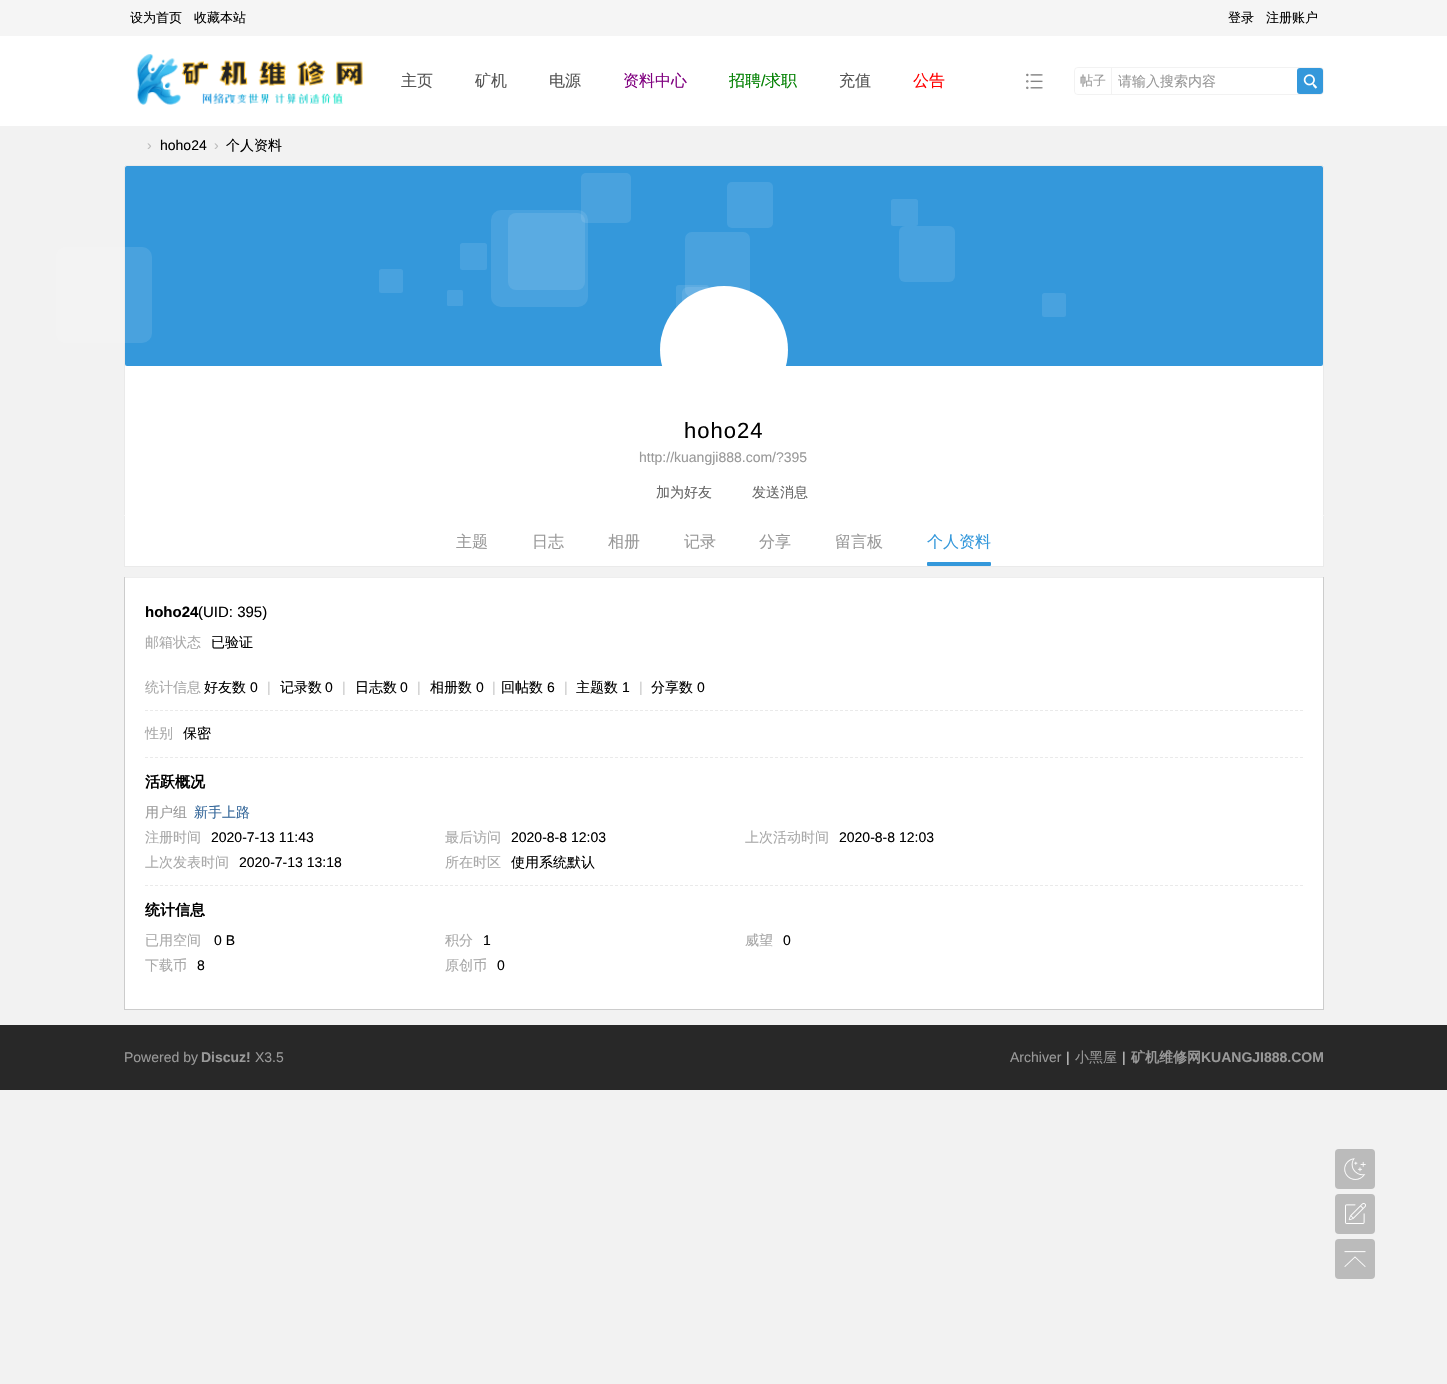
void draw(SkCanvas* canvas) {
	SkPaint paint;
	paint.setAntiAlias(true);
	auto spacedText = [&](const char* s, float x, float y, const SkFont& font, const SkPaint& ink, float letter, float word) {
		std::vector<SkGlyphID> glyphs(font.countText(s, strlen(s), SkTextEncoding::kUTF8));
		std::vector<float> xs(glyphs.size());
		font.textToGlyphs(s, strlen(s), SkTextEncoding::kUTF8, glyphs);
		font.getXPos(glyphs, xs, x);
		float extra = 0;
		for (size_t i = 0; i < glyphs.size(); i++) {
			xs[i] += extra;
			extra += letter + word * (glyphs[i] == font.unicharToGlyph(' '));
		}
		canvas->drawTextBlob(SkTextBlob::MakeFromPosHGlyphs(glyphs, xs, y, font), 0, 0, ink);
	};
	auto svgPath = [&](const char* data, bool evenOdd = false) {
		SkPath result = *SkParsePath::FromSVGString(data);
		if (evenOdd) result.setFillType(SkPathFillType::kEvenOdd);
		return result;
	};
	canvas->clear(0xfff2f2f2);
	paint.setColor(0xfff5f5f5);
	canvas->drawRect(SkRect::MakeXYWH(0, 0, 1447, 36), paint);
	SkFont f1(fontMgr->matchFamilyStyle("WenQuanYi Zen Hei", SkFontStyle(500, SkFontStyle::kNormal_Width, SkFontStyle::kUpright_Slant)), 13);
	f1.setSubpixel(true);
	paint.setColor(0xff000000);
	canvas->drawString("设为首页", 130, 22, f1, paint);
	canvas->drawString("收藏本站", 194, 22, f1, paint);
	canvas->drawString("登录", 1228, 22, f1, paint);
	canvas->drawString("注册账户", 1266, 22, f1, paint);
	paint.setColor(0xffffffff);
	canvas->drawRect(SkRect::MakeXYWH(0, 36, 1447, 90), paint);
	canvas->drawImageRect(SkImages::DeferredFromEncodedData(SkData::MakeFromFileName("img1.png")), SkRect::MakeXYWH(136, 54, 227, 51), SkSamplingOptions());
	SkFont f2(fontMgr->matchFamilyStyle("WenQuanYi Zen Hei", SkFontStyle(500, SkFontStyle::kNormal_Width, SkFontStyle::kUpright_Slant)), 16);
	f2.setSubpixel(true);
	paint.setColor(0xff555555);
	canvas->drawString("主页", 401, 86, f2, paint);
	canvas->drawString("矿机", 475, 86, f2, paint);
	canvas->drawString("电源", 549, 86, f2, paint);
	paint.setColor(0xff800080);
	canvas->drawString("资料中心", 623, 86, f2, paint);
	paint.setColor(0xff008000);
	canvas->drawString("招聘", 729, 86, f2, paint);
	SkFont f3(fontMgr->matchFamilyStyle("Liberation Sans", SkFontStyle::Normal()), 16);
	f3.setSubpixel(true);
	canvas->drawString("/", 761, 86, f3, paint);
	canvas->drawString("求职", 765, 86, f2, paint);
	paint.setColor(0xff555555);
	canvas->drawString("充值", 839, 86, f2, paint);
	paint.setColor(0xffff0000);
	canvas->drawString("公告", 913, 86, f2, paint);
	canvas->drawImageRect(SkImages::DeferredFromEncodedData(SkData::MakeFromFileName("img2.png")), SkRect::MakeXYWH(1026, 73, 17, 17), SkSamplingOptions());
	paint.setStroke(true);
	paint.setStrokeWidth(1);
	paint.setColor(0xfff2f2f2);
	canvas->drawRoundRect(SkRect::MakeXYWH(1074.5, 67.5, 249, 27), 3.5, 3.5, paint);
	paint.setStroke(false);
	paint.setColor(0xffffffff);
	canvas->drawPath(svgPath("M1078 68H1112V94H1078C1076.5 94 1075 92.5 1075 91V71C1075 69.5 1076.5 68 1078 68Z"), paint);
	paint.setColor(0xfff2f2f2);
	canvas->drawRect(SkRect::MakeXYWH(1111, 68, 1, 26), paint);
	paint.setColor(0xff999999);
	canvas->drawString("帖子", 1080, 85, f1, paint);
	SkFont f4(fontMgr->matchFamilyStyle("WenQuanYi Zen Hei", SkFontStyle(500, SkFontStyle::kNormal_Width, SkFontStyle::kUpright_Slant)), 14);
	f4.setSubpixel(true);
	canvas->drawString("请输入搜索内容", 1118, 86, f4, paint);
	paint.setColor(0xff3498db);
	canvas->drawRoundRect(SkRect::MakeXYWH(1297, 68, 26, 26), 3, 3, paint);
	canvas->drawImageRect(SkImages::DeferredFromEncodedData(SkData::MakeFromFileName("img3.png")), SkRect::MakeXYWH(1303, 74, 15, 15), SkSamplingOptions());
	SkFont f5(fontMgr->matchFamilyStyle("Liberation Sans", SkFontStyle::Normal()), 14);
	f5.setSubpixel(true);
	paint.setColor(0xffbdbdbd);
	canvas->drawString("›", 147, 150, f5, paint);
	paint.setColor(0xff000000);
	canvas->drawString("hoho24", 160, 150, f5, paint);
	paint.setColor(0xffbdbdbd);
	canvas->drawString("›", 214, 150, f5, paint);
	paint.setColor(0xff000000);
	canvas->drawString("个人资料", 226, 150, f4, paint);
	paint.setColor(0xffffffff);
	canvas->drawRoundRect(SkRect::MakeXYWH(124, 165, 1200, 351), 2, 2, paint);
	paint.setColor(0xffeaeaea);
	canvas->drawRect(SkRect::MakeXYWH(125, 165, 1198, 1), paint);
	canvas->drawRect(SkRect::MakeXYWH(1323, 166, 1, 349), paint);
	canvas->drawRect(SkRect::MakeXYWH(124, 166, 1, 349), paint);
	paint.setColor(0xff3498db);
	canvas->drawRoundRect(SkRect::MakeXYWH(125, 166, 1198, 200), 2, 2, paint);
	paint.setColor(0xff48a2df);
	canvas->drawRoundRect(SkRect::MakeXYWH(491, 210, 97, 97), 10, 10, paint);
	paint.setColor(0xff5aabe2);
	canvas->drawRoundRect(SkRect::MakeXYWH(508, 213, 77, 77), 8, 8, paint);
	paint.setColor(0x1affffff);
	canvas->drawRoundRect(SkRect::MakeXYWH(581, 173, 50, 50), 5, 5, paint);
	paint.setColor(0xff48a2df);
	canvas->drawRoundRect(SkRect::MakeXYWH(727, 182, 46, 46), 5, 5, paint);
	canvas->drawRoundRect(SkRect::MakeXYWH(891, 199, 27, 27), 2.5, 2.5, paint);
	paint.setColor(0x1affffff);
	canvas->drawRoundRect(SkRect::MakeXYWH(56, 247, 96, 96), 10, 10, paint);
	paint.setColor(0xff48a2df);
	canvas->drawRoundRect(SkRect::MakeXYWH(379, 269, 24, 24), 2.5, 2.5, paint);
	canvas->drawRoundRect(SkRect::MakeXYWH(460, 243, 27, 27), 2.5, 2.5, paint);
	canvas->drawRoundRect(SkRect::MakeXYWH(682, 287, 62, 62), 6, 6, paint);
	paint.setColor(0x1affffff);
	canvas->drawRoundRect(SkRect::MakeXYWH(685, 232, 65, 65), 7, 7, paint);
	paint.setColor(0xff48a2df);
	canvas->drawRoundRect(SkRect::MakeXYWH(899, 226, 56, 56), 6, 6, paint);
	paint.setColor(0x1affffff);
	canvas->drawRoundRect(SkRect::MakeXYWH(676, 285, 33, 33), 3, 3, paint);
	paint.setColor(0xff48a2df);
	canvas->drawRoundRect(SkRect::MakeXYWH(447, 290, 16, 16), 1.5, 1.5, paint);
	canvas->drawRoundRect(SkRect::MakeXYWH(1042, 293, 24, 24), 2.5, 2.5, paint);
	paint.setColor(0xffffffff);
	canvas->drawCircle(724, 350, 64, paint);
	SkFont f6(fontMgr->matchFamilyStyle("Liberation Sans", SkFontStyle::Normal()), 22);
	f6.setSubpixel(true);
	paint.setColor(0xff000000);
	spacedText("hoho24", 684, 438, f6, paint, 1, 0);
	paint.setColor(0xff999999);
	canvas->drawString("http://kuangji888.com/?395", 639, 462, f5, paint);
	paint.setColor(0xff666666);
	canvas->drawString("加为好友", 656, 497, f4, paint);
	canvas->drawString("发送消息", 752, 497, f4, paint);
	paint.setColor(0xffffffff);
	canvas->drawRect(SkRect::MakeXYWH(125, 516, 1198, 50), paint);
	paint.setColor(0xffeaeaea);
	canvas->drawRect(SkRect::MakeXYWH(1323, 516, 1, 51), paint);
	canvas->drawRect(SkRect::MakeXYWH(124, 566, 1200, 1), paint);
	canvas->drawRect(SkRect::MakeXYWH(124, 516, 1, 51), paint);
	paint.setColor(0xff999999);
	canvas->drawString("主题", 456, 547, f2, paint);
	canvas->drawString("日志", 532, 547, f2, paint);
	canvas->drawString("相册", 608, 547, f2, paint);
	canvas->drawString("记录", 684, 547, f2, paint);
	canvas->drawString("分享", 759, 547, f2, paint);
	canvas->drawString("留言板", 835, 547, f2, paint);
	paint.setColor(0xff3498db);
	canvas->drawString("个人资料", 927, 547, f2, paint);
	canvas->drawRoundRect(SkRect::MakeXYWH(927, 562, 64, 4), 1, 1, paint);
	paint.setColor(0xffffffff);
	canvas->drawRect(SkRect::MakeXYWH(125, 578, 1198, 431), paint);
	paint.setColor(0xffeeeeee);
	canvas->drawRect(SkRect::MakeXYWH(124, 577, 1200, 1), paint);
	paint.setColor(0xffcccccc);
	canvas->drawRect(SkRect::MakeXYWH(1323, 577, 1, 433), paint);
	canvas->drawRect(SkRect::MakeXYWH(124, 1009, 1200, 1), paint);
	canvas->drawRect(SkRect::MakeXYWH(124, 577, 1, 433), paint);
	paint.setStroke(true);
	paint.setColor(0xffeaeaea);
	paint.setPathEffect(SkDashPathEffect::Make({{3, 2}}, 0));
	canvas->drawPath(svgPath("M145 757.5H1303"), paint);
	paint.setPathEffect(nullptr);
	SkFont f7(fontMgr->matchFamilyStyle("Liberation Sans", SkFontStyle::Bold()), 15);
	f7.setSubpixel(true);
	paint.setStroke(false);
	paint.setColor(0xff000000);
	canvas->drawString("hoho24", 145, 617, f7, paint);
	SkFont f8(fontMgr->matchFamilyStyle("Liberation Sans", SkFontStyle::Normal()), 15);
	f8.setSubpixel(true);
	canvas->drawString("(UID: 395)", 198, 617, f8, paint);
	paint.setColor(0xffa8a8a8);
	canvas->drawString("邮箱状态", 145, 647, f4, paint);
	paint.setColor(0xff000000);
	canvas->drawString("已验证", 211, 647, f4, paint);
	paint.setStroke(true);
	paint.setColor(0xffeaeaea);
	paint.setPathEffect(SkDashPathEffect::Make({{3, 2}}, 0));
	canvas->drawPath(svgPath("M145 710.5H1303"), paint);
	paint.setPathEffect(nullptr);
	paint.setStroke(false);
	paint.setColor(0xffa8a8a8);
	canvas->drawString("统计信息", 145, 692, f4, paint);
	paint.setColor(0xff000000);
	canvas->drawString("好友数", 204, 692, f4, paint);
	canvas->drawString("0", 250, 692, f5, paint);
	paint.setColor(0xffcccccc);
	canvas->drawString("|", 267, 692, f5, paint);
	paint.setColor(0xff000000);
	canvas->drawString("记录数", 280, 692, f4, paint);
	canvas->drawString("0", 325, 692, f5, paint);
	paint.setColor(0xffcccccc);
	canvas->drawString("|", 342, 692, f5, paint);
	paint.setColor(0xff000000);
	canvas->drawString("日志数", 355, 692, f4, paint);
	canvas->drawString("0", 400, 692, f5, paint);
	paint.setColor(0xffcccccc);
	canvas->drawString("|", 417, 692, f5, paint);
	paint.setColor(0xff000000);
	canvas->drawString("相册数", 430, 692, f4, paint);
	canvas->drawString("0", 476, 692, f5, paint);
	paint.setColor(0xffcccccc);
	canvas->drawString("|", 492, 692, f5, paint);
	paint.setColor(0xff000000);
	canvas->drawString("回帖数", 501, 692, f4, paint);
	canvas->drawString("6", 547, 692, f5, paint);
	paint.setColor(0xffcccccc);
	canvas->drawString("|", 564, 692, f5, paint);
	paint.setColor(0xff000000);
	canvas->drawString("主题数", 576, 692, f4, paint);
	canvas->drawString("1", 622, 692, f5, paint);
	paint.setColor(0xffcccccc);
	canvas->drawString("|", 639, 692, f5, paint);
	paint.setColor(0xff000000);
	canvas->drawString("分享数", 651, 692, f4, paint);
	canvas->drawString("0", 697, 692, f5, paint);
	paint.setColor(0xffa8a8a8);
	canvas->drawString("性别", 145, 738, f4, paint);
	paint.setColor(0xff000000);
	canvas->drawString("保密", 183, 738, f4, paint);
	paint.setStroke(true);
	paint.setColor(0xffeaeaea);
	paint.setPathEffect(SkDashPathEffect::Make({{3, 2}}, 0));
	canvas->drawPath(svgPath("M145 885.5H1303"), paint);
	paint.setPathEffect(nullptr);
	SkFont f9(fontMgr->matchFamilyStyle("WenQuanYi Zen Hei", SkFontStyle::Bold()), 15);
	f9.setSubpixel(true);
	paint.setStroke(false);
	paint.setColor(0xff000000);
	canvas->drawString("活跃概况", 145, 787, f9, paint);
	paint.setColor(0xff999999);
	canvas->drawString("用户组", 145, 817, f4, paint);
	paint.setColor(0xff336699);
	canvas->drawString("新手上路", 194, 817, f4, paint);
	paint.setColor(0xffa8a8a8);
	canvas->drawString("注册时间", 145, 842, f4, paint);
	paint.setColor(0xff000000);
	canvas->drawString("2020-7-13 11:43", 211, 842, f5, paint);
	paint.setColor(0xffa8a8a8);
	canvas->drawString("最后访问", 445, 842, f4, paint);
	paint.setColor(0xff000000);
	canvas->drawString("2020-8-8 12:03", 511, 842, f5, paint);
	paint.setColor(0xffa8a8a8);
	canvas->drawString("上次活动时间", 745, 842, f4, paint);
	paint.setColor(0xff000000);
	canvas->drawString("2020-8-8 12:03", 839, 842, f5, paint);
	paint.setColor(0xffa8a8a8);
	canvas->drawString("上次发表时间", 145, 867, f4, paint);
	paint.setColor(0xff000000);
	canvas->drawString("2020-7-13 13:18", 239, 867, f5, paint);
	paint.setColor(0xffa8a8a8);
	canvas->drawString("所在时区", 445, 867, f4, paint);
	paint.setColor(0xff000000);
	canvas->drawString("使用系统默认", 511, 867, f4, paint);
	canvas->drawString("统计信息", 145, 915, f9, paint);
	paint.setColor(0xffa8a8a8);
	canvas->drawString("已用空间", 145, 945, f4, paint);
	paint.setColor(0xff000000);
	canvas->drawString("0 B", 214, 945, f5, paint);
	paint.setColor(0xffa8a8a8);
	canvas->drawString("积分", 445, 945, f4, paint);
	paint.setColor(0xff000000);
	canvas->drawString("1", 483, 945, f5, paint);
	paint.setColor(0xffa8a8a8);
	canvas->drawString("威望", 745, 945, f4, paint);
	paint.setColor(0xff000000);
	canvas->drawString("0", 783, 945, f5, paint);
	paint.setColor(0xffa8a8a8);
	canvas->drawString("下载币", 145, 970, f4, paint);
	paint.setColor(0xff000000);
	canvas->drawString("8", 197, 970, f5, paint);
	paint.setColor(0xffa8a8a8);
	canvas->drawString("原创币", 445, 970, f4, paint);
	paint.setColor(0xff000000);
	canvas->drawString("0", 497, 970, f5, paint);
	paint.setColor(0xff282828);
	canvas->drawRect(SkRect::MakeXYWH(0, 1025, 1447, 65), paint);
	paint.setColor(0xff999999);
	canvas->drawString("Powered by", 124, 1062, f5, paint);
	SkFont f10(fontMgr->matchFamilyStyle("Liberation Sans", SkFontStyle::Bold()), 14);
	f10.setSubpixel(true);
	canvas->drawString("Discuz!", 201, 1062, f10, paint);
	canvas->drawString("X3.5", 255, 1062, f5, paint);
	canvas->drawString("Archiver", 1010, 1062, f5, paint);
	paint.setColor(0xffcccccc);
	canvas->drawString("|", 1066, 1062, f5, paint);
	paint.setColor(0xff999999);
	canvas->drawString("小黑屋", 1075, 1062, f4, paint);
	paint.setColor(0xffcccccc);
	canvas->drawString("|", 1122, 1062, f5, paint);
	SkFont f11(fontMgr->matchFamilyStyle("WenQuanYi Zen Hei", SkFontStyle::Bold()), 14);
	f11.setSubpixel(true);
	paint.setColor(0xff999999);
	canvas->drawString("矿机维修网", 1131, 1062, f11, paint);
	canvas->drawString("KUANGJI888.COM", 1201, 1062, f10, paint);
	paint.setColor(0xffbbbbbb);
	canvas->drawRoundRect(SkRect::MakeXYWH(1335, 1149, 40, 40), 4, 4, paint);
	canvas->drawImageRect(SkImages::DeferredFromEncodedData(SkData::MakeFromFileName("img4.png")), SkRect::MakeXYWH(1344, 1158, 22, 22), SkSamplingOptions());
	canvas->drawRoundRect(SkRect::MakeXYWH(1335, 1194, 40, 40), 4, 4, paint);
	canvas->drawImageRect(SkImages::DeferredFromEncodedData(SkData::MakeFromFileName("img5.png")), SkRect::MakeXYWH(1345, 1203, 21, 21), SkSamplingOptions());
	canvas->drawRoundRect(SkRect::MakeXYWH(1335, 1239, 40, 40), 4, 4, paint);
	canvas->drawImageRect(SkImages::DeferredFromEncodedData(SkData::MakeFromFileName("img6.png")), SkRect::MakeXYWH(1344, 1251, 22, 16), SkSamplingOptions());
}
